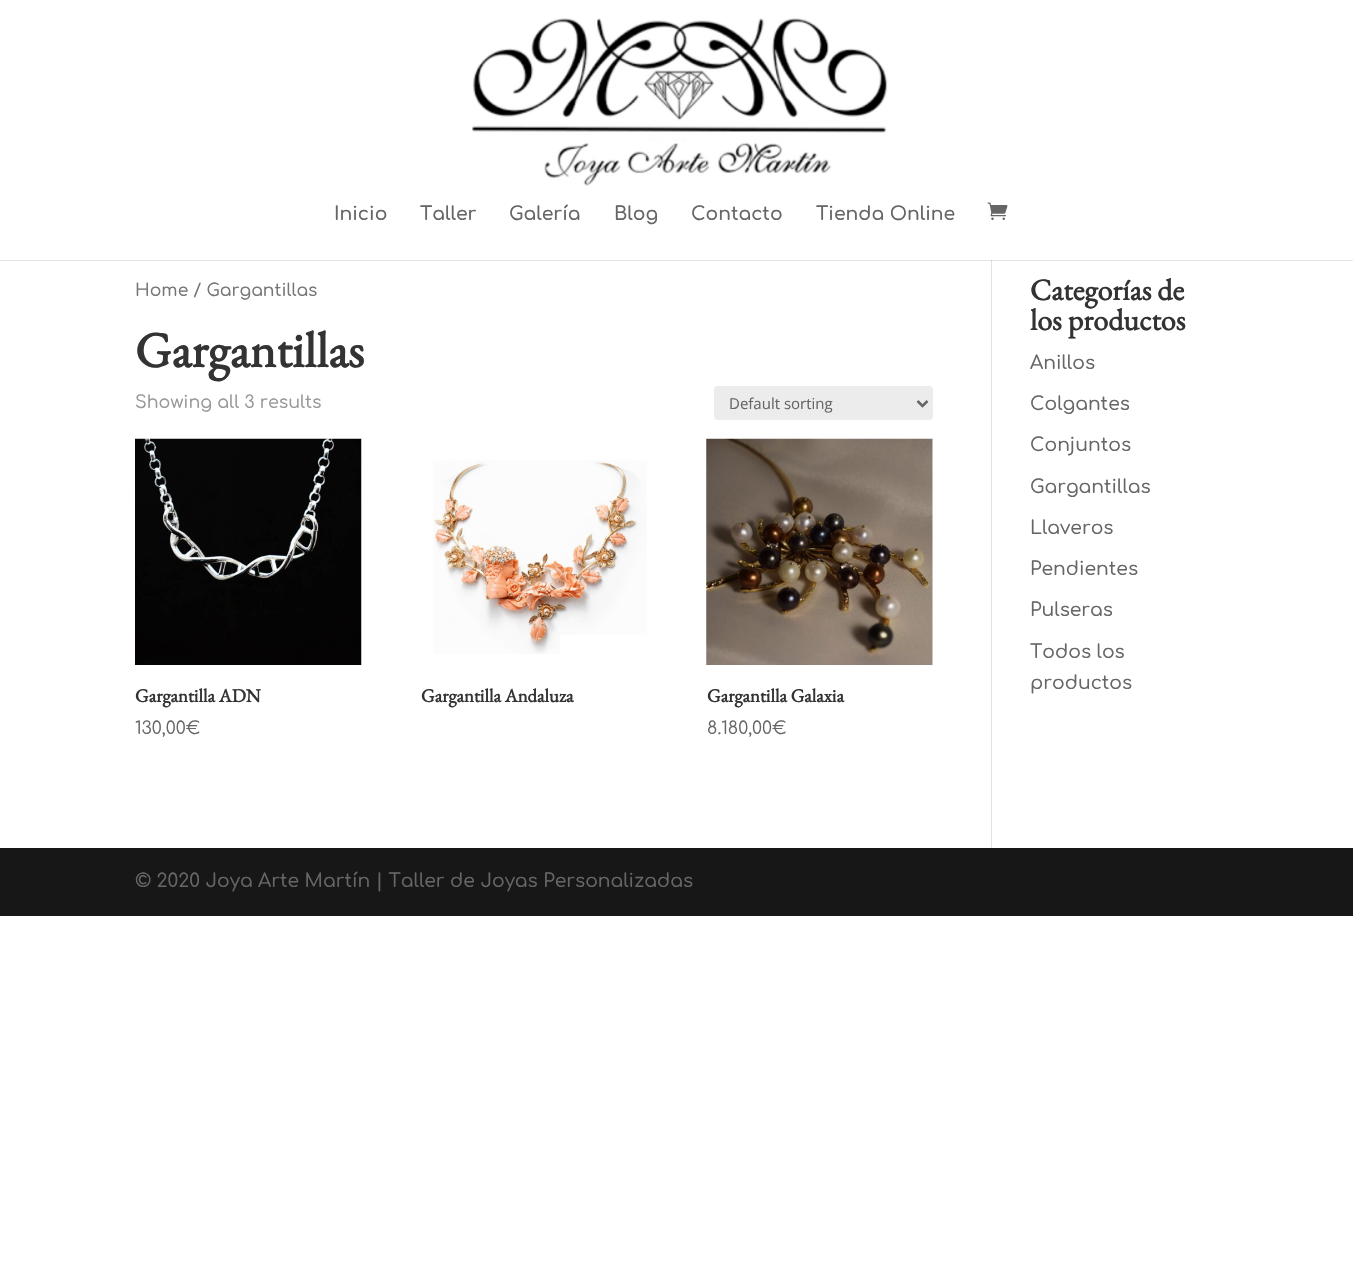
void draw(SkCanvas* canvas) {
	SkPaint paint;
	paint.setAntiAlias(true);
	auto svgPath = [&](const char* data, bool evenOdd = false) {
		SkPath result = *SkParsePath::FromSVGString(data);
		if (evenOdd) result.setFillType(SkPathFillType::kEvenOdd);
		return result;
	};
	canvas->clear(0xffffffff);
	paint.setColor(0xffe2e2e2);
	canvas->drawRect(SkRect::MakeXYWH(991, 260, 1, 588), paint);
	paint.setColor(0x1a000000);
	canvas->drawPath(svgPath("M0 260V261H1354V1V260Z"), paint);
	canvas->drawImageRect(SkImages::DeferredFromEncodedData(SkData::MakeFromFileName("img1.png")), SkRect::MakeXYWH(472, 18, 416, 168), SkSamplingOptions());
	SkFont f1(fontMgr->matchFamilyStyle("Comfortaa", SkFontStyle(600, SkFontStyle::kNormal_Width, SkFontStyle::kUpright_Slant)), 18.75);
	f1.setSubpixel(true);
	paint.setColor(0xff666666);
	canvas->drawString("Inicio", 334, 220, f1, paint);
	canvas->drawString("Taller", 420, 220, f1, paint);
	canvas->drawString("Galería", 509, 220, f1, paint);
	canvas->drawString("Blog", 614, 220, f1, paint);
	canvas->drawString("Contacto", 691, 220, f1, paint);
	canvas->drawString("Tienda Online", 816, 220, f1, paint);
	canvas->drawImageRect(SkImages::DeferredFromEncodedData(SkData::MakeFromFileName("img2.png")), SkRect::MakeXYWH(987, 202, 21, 18), SkSamplingOptions());
	SkFont f2(fontMgr->matchFamilyStyle("Comfortaa", SkFontStyle(500, SkFontStyle::kNormal_Width, SkFontStyle::kUpright_Slant)), 17.25);
	f2.setSubpixel(true);
	paint.setColor(0xff767676);
	canvas->drawString("Home / Gargantillas", 135, 296, f2, paint);
	SkFont f3(fontMgr->matchFamilyStyle("EB Garamond", SkFontStyle::Bold()), 50);
	f3.setSubpixel(true);
	paint.setColor(0xff333333);
	canvas->drawString("Gargantillas", 135, 367, f3, paint);
	SkFont f4(fontMgr->matchFamilyStyle("Comfortaa", SkFontStyle(500, SkFontStyle::kNormal_Width, SkFontStyle::kUpright_Slant)), 17.5);
	f4.setSubpixel(true);
	paint.setColor(0xff999999);
	canvas->drawString("Showing all 3 results", 135, 408, f4, paint);
	paint.setColor(0xffececec);
	canvas->drawRoundRect(SkRect::MakeXYWH(714, 386, 219, 34), 4, 4, paint);
	paint.setStroke(true);
	paint.setStrokeWidth(2.5);
	paint.setColor(0xff666666);
	canvas->drawPath(svgPath("M917.5 401L922.5 406L927.5 401"), paint);
	SkFont f5(fontMgr->matchFamilyStyle("Open Sans", SkFontStyle::Normal()), 15);
	f5.setSubpixel(true);
	paint.setStroke(false);
	canvas->drawString("Default sorting", 729, 409, f5, paint);
	canvas->drawImageRect(SkImages::DeferredFromEncodedData(SkData::MakeFromFileName("img3.png")), SkRect::MakeXYWH(135, 438, 227, 227), SkSamplingOptions());
	SkFont f6(fontMgr->matchFamilyStyle("EB Garamond", SkFontStyle::Bold()), 18.75);
	f6.setSubpixel(true);
	paint.setColor(0xff333333);
	canvas->drawString("Gargantilla ADN", 135, 702, f6, paint);
	SkFont f7(fontMgr->matchFamilyStyle("Comfortaa", SkFontStyle::Normal()), 17.5);
	f7.setSubpixel(true);
	paint.setColor(0xff666666);
	canvas->drawString("130,00€", 135, 734, f7, paint);
	canvas->drawImageRect(SkImages::DeferredFromEncodedData(SkData::MakeFromFileName("img4.png")), SkRect::MakeXYWH(433, 460, 214, 194), SkSamplingOptions());
	paint.setColor(0xff333333);
	canvas->drawString("Gargantilla Andaluza", 421, 702, f6, paint);
	canvas->drawImageRect(SkImages::DeferredFromEncodedData(SkData::MakeFromFileName("img5.png")), SkRect::MakeXYWH(706, 438, 227, 227), SkSamplingOptions());
	canvas->drawString("Gargantilla Galaxia", 707, 702, f6, paint);
	paint.setColor(0xff666666);
	canvas->drawString("8.180,00€", 707, 734, f7, paint);
	SkFont f8(fontMgr->matchFamilyStyle("EB Garamond", SkFontStyle::Bold()), 30);
	f8.setSubpixel(true);
	paint.setColor(0xff333333);
	canvas->drawString("Categorías de", 1030, 300, f8, paint);
	canvas->drawString("los productos", 1030, 330, f8, paint);
	SkFont f9(fontMgr->matchFamilyStyle("Comfortaa", SkFontStyle(500, SkFontStyle::kNormal_Width, SkFontStyle::kUpright_Slant)), 18.75);
	f9.setSubpixel(true);
	paint.setColor(0xff666666);
	canvas->drawString("Anillos", 1030, 369, f9, paint);
	canvas->drawString("Colgantes", 1030, 410, f9, paint);
	canvas->drawString("Conjuntos", 1030, 451, f9, paint);
	canvas->drawString("Gargantillas", 1030, 493, f9, paint);
	canvas->drawString("Llaveros", 1030, 534, f9, paint);
	canvas->drawString("Pendientes", 1030, 575, f9, paint);
	canvas->drawString("Pulseras", 1030, 616, f9, paint);
	canvas->drawString("Todos los", 1030, 658, f9, paint);
	canvas->drawString("productos", 1030, 689, f9, paint);
	paint.setColor(0xff171717);
	canvas->drawRect(SkRect::MakeXYWH(0, 848, 1353, 68), paint);
	paint.setColor(0xff666666);
	canvas->drawString("© 2020 Joya Arte Martín | Taller de Joyas Personalizadas", 135, 887, f9, paint);
}
